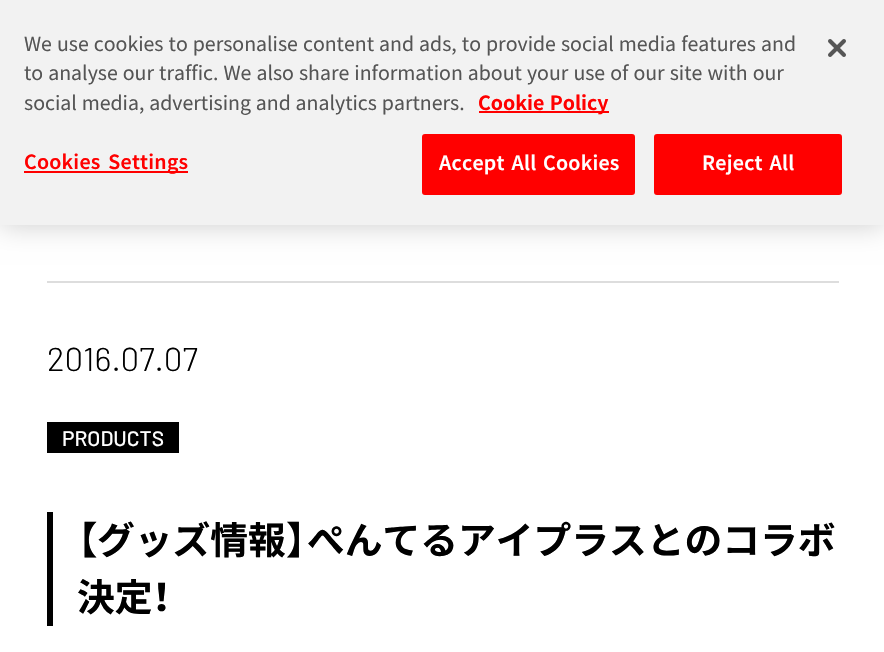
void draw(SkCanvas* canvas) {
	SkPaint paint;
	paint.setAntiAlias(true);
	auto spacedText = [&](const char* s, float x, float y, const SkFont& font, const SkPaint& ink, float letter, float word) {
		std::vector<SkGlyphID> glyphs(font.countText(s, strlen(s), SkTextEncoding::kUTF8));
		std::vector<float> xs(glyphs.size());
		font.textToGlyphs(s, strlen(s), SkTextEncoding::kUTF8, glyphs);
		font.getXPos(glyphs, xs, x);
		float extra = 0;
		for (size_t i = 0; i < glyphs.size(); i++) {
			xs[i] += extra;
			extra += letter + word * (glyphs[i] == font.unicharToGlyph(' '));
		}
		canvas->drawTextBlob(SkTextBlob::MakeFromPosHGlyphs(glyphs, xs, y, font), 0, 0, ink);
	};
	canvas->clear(0xffffffff);
	paint.setColor(0x33000000);
	paint.setMaskFilter(SkMaskFilter::MakeBlur(kNormal_SkBlurStyle, 13.5));
	canvas->drawRect(SkRect::MakeXYWH(0, 0, 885, 225), paint);
	paint.setMaskFilter(nullptr);
	paint.setColor(0xfff2f2f2);
	canvas->drawRect(SkRect::MakeXYWH(0, 0, 884, 225), paint);
	SkFont f1(fontMgr->matchFamilyStyle("Noto Sans JP", SkFontStyle::Normal()), 19.5);
	f1.setSubpixel(true);
	paint.setColor(0xff555555);
	spacedText("We use cookies to personalise content and ads, to provide social media features and", 24, 51, f1, paint, 0, 0.7);
	spacedText("to analyse our traffic. We also share information about your use of our site with our", 24, 80, f1, paint, 0, 0.7);
	spacedText("social media, advertising and analytics partners.", 24, 110, f1, paint, 0, 0.5);
	paint.setColor(0xffff0000);
	canvas->drawRect(SkRect::MakeXYWH(479, 111, 130, 2), paint);
	SkFont f2(fontMgr->matchFamilyStyle("Noto Sans JP", SkFontStyle::Bold()), 19.5);
	f2.setSubpixel(true);
	spacedText("Cookie Policy", 478, 110, f2, paint, 0, 1);
	canvas->drawRect(SkRect::MakeXYWH(24, 171, 164, 2), paint);
	SkFont f3(fontMgr->matchFamilyStyle("Noto Sans JP", SkFontStyle(600, SkFontStyle::kNormal_Width, SkFontStyle::kUpright_Slant)), 19.5);
	f3.setSubpixel(true);
	spacedText("Cookies Settings", 24, 169, f3, paint, 0.25, 3);
	canvas->drawRoundRect(SkRect::MakeXYWH(423, 135, 211, 59), 2, 2, paint);
	paint.setStroke(true);
	paint.setStrokeWidth(2);
	canvas->drawRoundRect(SkRect::MakeXYWH(423, 135, 211, 59), 2, 2, paint);
	paint.setStroke(false);
	paint.setColor(0xffffffff);
	spacedText("Accept All Cookies", 439, 170, f3, paint, 0.25, 2);
	paint.setColor(0xffff0000);
	canvas->drawRoundRect(SkRect::MakeXYWH(655, 135, 186, 59), 2, 2, paint);
	paint.setStroke(true);
	canvas->drawRoundRect(SkRect::MakeXYWH(655, 135, 186, 59), 2, 2, paint);
	paint.setStroke(false);
	paint.setColor(0xffffffff);
	spacedText("Reject All", 702, 170, f3, paint, 0.25, 2);
	canvas->drawImageRect(SkImages::DeferredFromEncodedData(SkData::MakeFromFileName("img1.png")), SkRect::MakeXYWH(828, 39, 18, 18), SkSamplingOptions());
	paint.setColor(0xffdddddd);
	canvas->drawRect(SkRect::MakeXYWH(47, 281, 792, 2), paint);
	SkFont f4(fontMgr->matchFamilyStyle("Barlow", SkFontStyle(300, SkFontStyle::kNormal_Width, SkFontStyle::kUpright_Slant)), 33);
	f4.setSubpixel(true);
	paint.setColor(0xff000000);
	canvas->drawString("2016.07.07", 47, 371, f4, paint);
	canvas->drawRect(SkRect::MakeXYWH(47, 422, 132, 31), paint);
	SkFont f5(fontMgr->matchFamilyStyle("Barlow", SkFontStyle(500, SkFontStyle::kNormal_Width, SkFontStyle::kUpright_Slant)), 21);
	f5.setSubpixel(true);
	paint.setColor(0xffffffff);
	canvas->drawString("PRODUCTS", 62, 446, f5, paint);
	paint.setColor(0xff000000);
	canvas->drawRect(SkRect::MakeXYWH(47, 512, 6, 114), paint);
	SkFont f6(fontMgr->matchFamilyStyle("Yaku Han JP", SkFontStyle::Bold()), 37.75);
	f6.setSubpixel(true);
	canvas->drawString("【", 77, 554, f6, paint);
	SkFont f7(fontMgr->matchFamilyStyle("Noto Sans JP", SkFontStyle::Bold()), 37.75);
	f7.setSubpixel(true);
	canvas->drawString("グッズ情報", 97, 554, f7, paint);
	canvas->drawString("】", 286, 554, f6, paint);
	canvas->drawString("ぺんてるアイプラスとのコラボ", 307, 554, f7, paint);
	canvas->drawString("決定", 77, 611, f7, paint);
	canvas->drawString("！", 152, 611, f6, paint);
}
